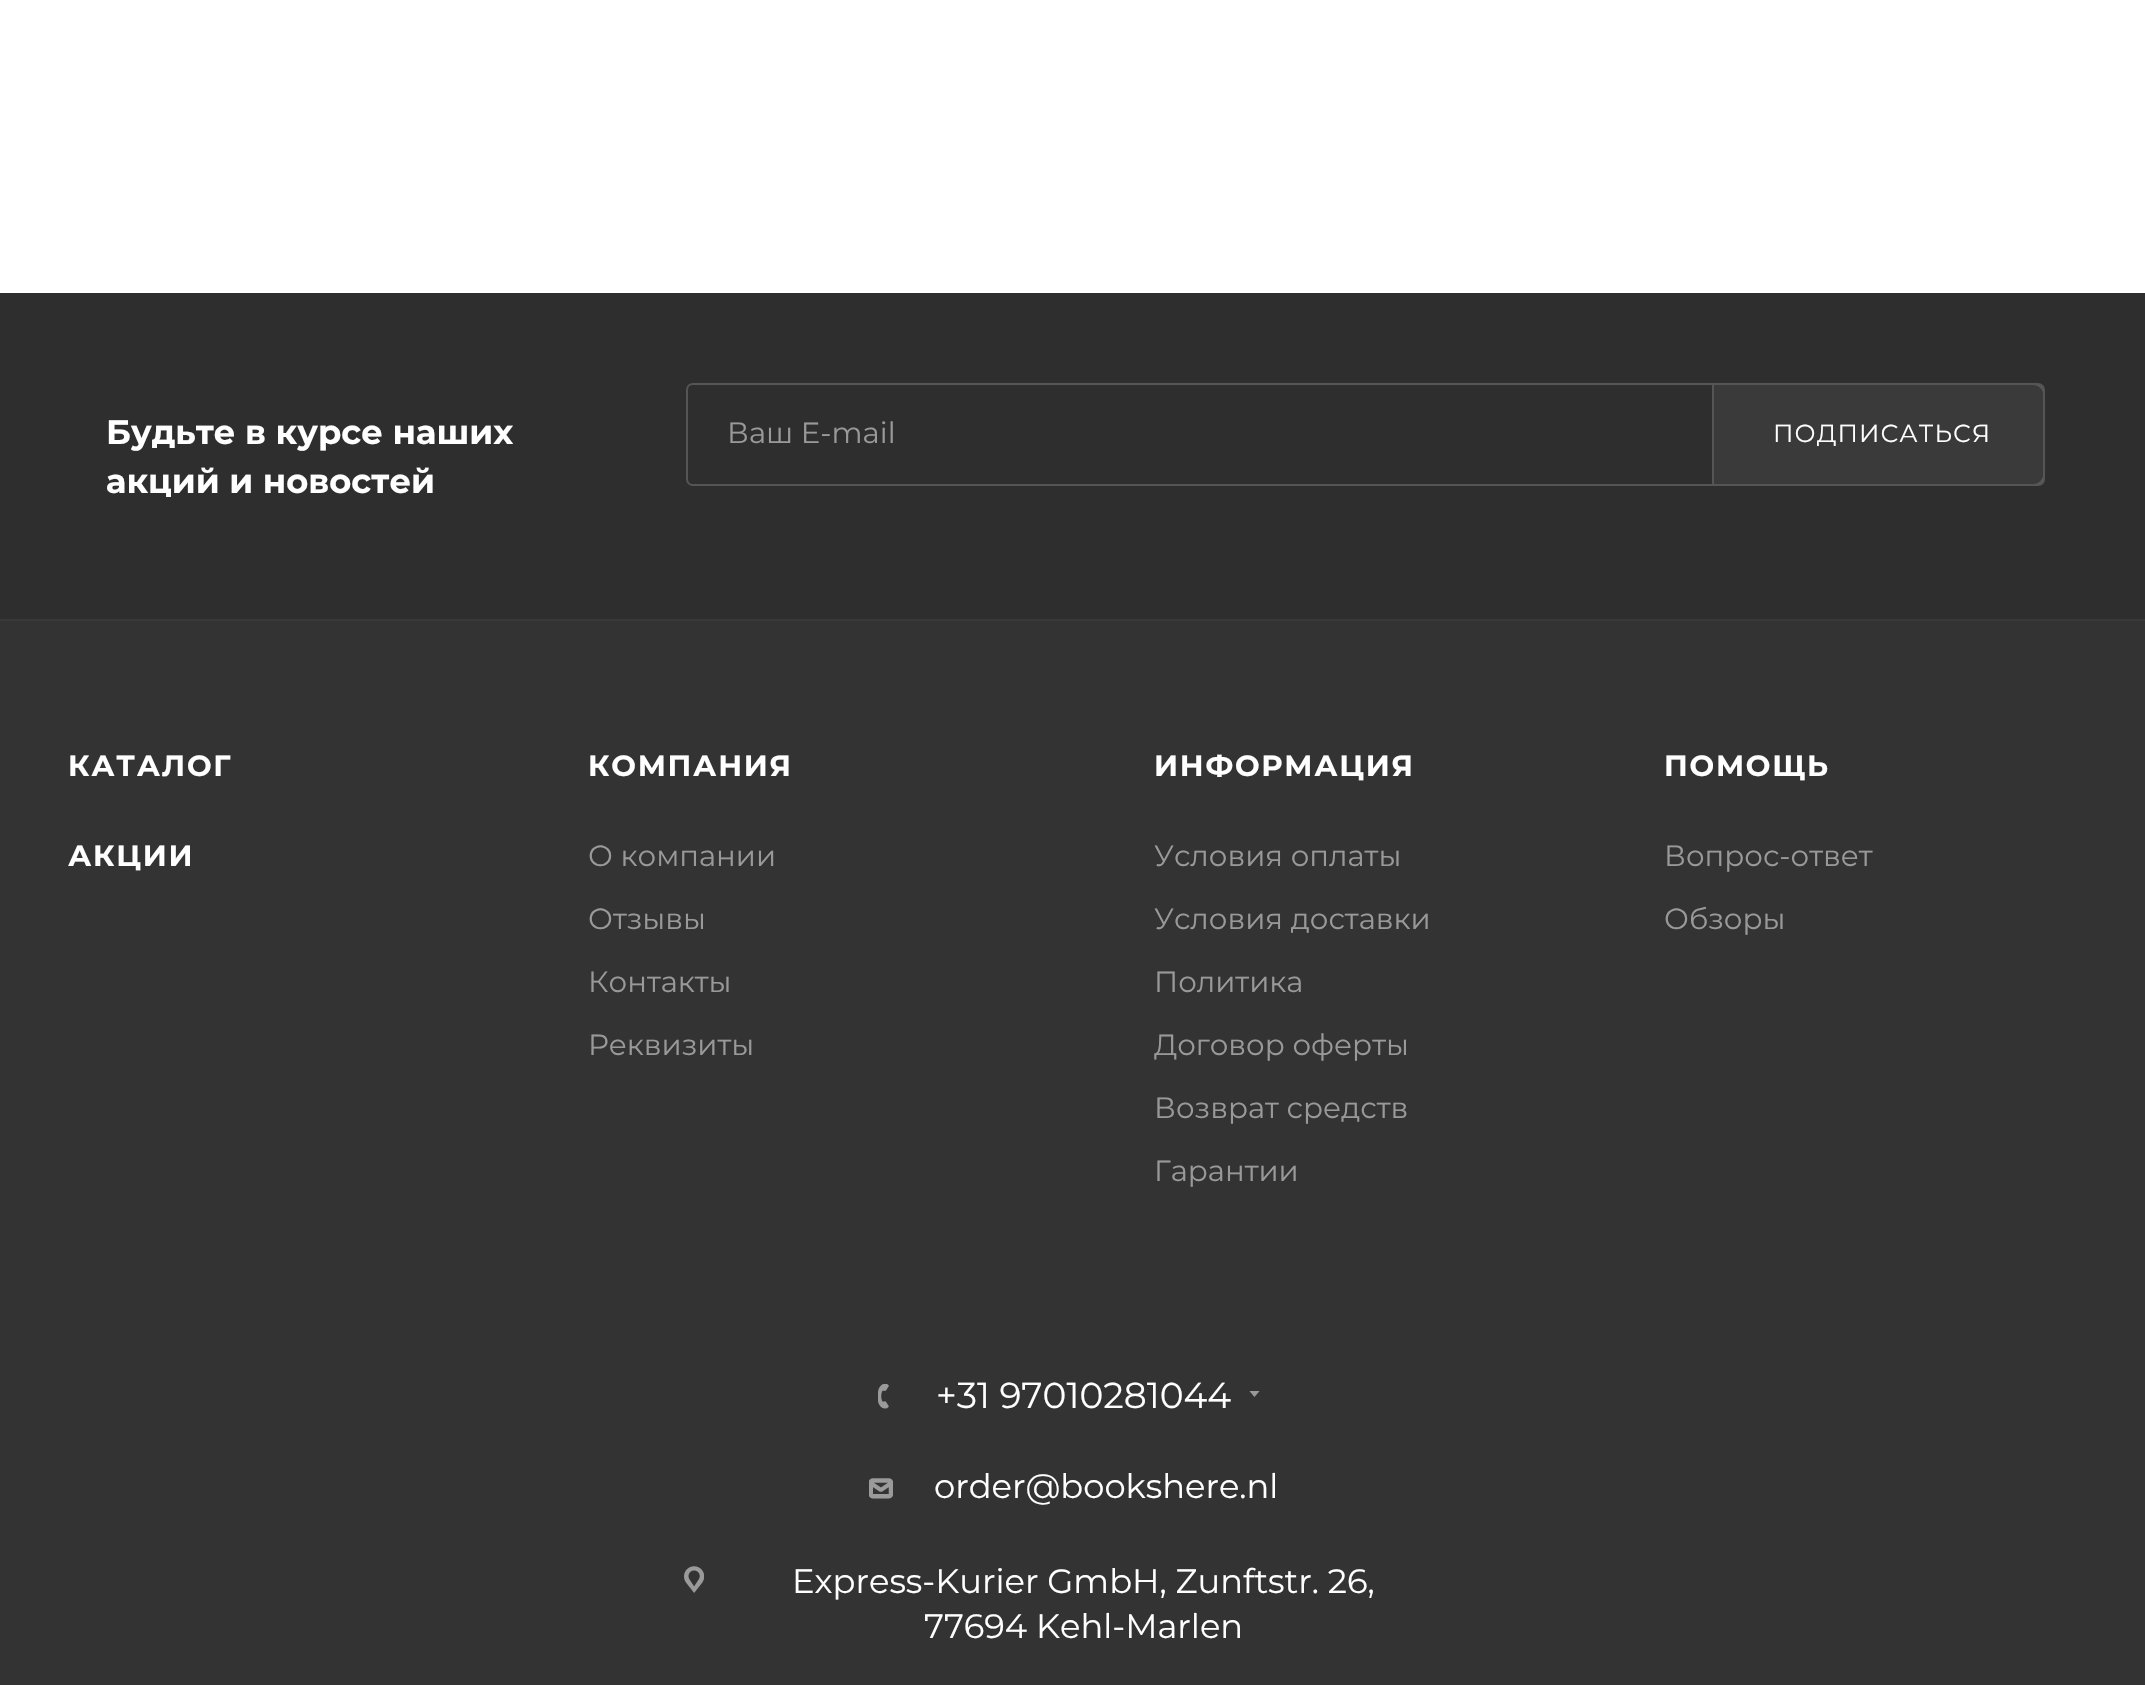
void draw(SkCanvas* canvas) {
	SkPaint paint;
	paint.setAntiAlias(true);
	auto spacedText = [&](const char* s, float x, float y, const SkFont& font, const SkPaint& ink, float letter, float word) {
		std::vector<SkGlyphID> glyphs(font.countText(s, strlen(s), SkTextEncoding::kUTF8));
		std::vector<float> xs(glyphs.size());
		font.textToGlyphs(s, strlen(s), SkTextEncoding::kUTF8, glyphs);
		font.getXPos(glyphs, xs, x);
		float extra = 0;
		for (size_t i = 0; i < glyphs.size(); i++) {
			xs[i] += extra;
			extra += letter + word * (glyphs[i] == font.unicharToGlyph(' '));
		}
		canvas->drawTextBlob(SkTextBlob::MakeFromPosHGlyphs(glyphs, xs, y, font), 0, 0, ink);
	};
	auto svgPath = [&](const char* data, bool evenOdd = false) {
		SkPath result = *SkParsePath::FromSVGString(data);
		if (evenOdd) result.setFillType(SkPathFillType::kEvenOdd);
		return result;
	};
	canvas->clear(0xffffffff);
	paint.setColor(0xff2e2e2e);
	canvas->drawRect(SkRect::MakeXYWH(0, 293, 2145, 326), paint);
	paint.setColor(0xff37393b);
	canvas->drawRect(SkRect::MakeXYWH(0, 619, 2145, 2), paint);
	SkFont f1(fontMgr->matchFamilyStyle("Montserrat", SkFontStyle::Bold()), 33.75);
	f1.setSubpixel(true);
	paint.setColor(0xffffffff);
	canvas->drawString("Будьте в курсе наших", 106, 444, f1, paint);
	canvas->drawString("акций и новостей", 106, 493, f1, paint);
	paint.setStroke(true);
	paint.setStrokeWidth(2);
	paint.setColor(0xff555555);
	canvas->drawPath(svgPath("M693 384H2034C2039.5 384 2044 388.5 2044 394V475C2044 480.5 2039.5 485 2034 485H693C689.5 485 687 482.5 687 479V390C687 386.5 689.5 384 693 384Z"), paint);
	SkFont f2(fontMgr->matchFamilyStyle("Montserrat", SkFontStyle::Normal()), 29.25);
	f2.setSubpixel(true);
	paint.setStroke(false);
	paint.setColor(0xff999999);
	canvas->drawString("Ваш E-mail", 727, 443, f2, paint);
	paint.setColor(0x33686a6e);
	canvas->drawPath(svgPath("M1713 384H2038C2041.5 384 2044 386.5 2044 390V479C2044 482.5 2041.5 485 2038 485H1713Z"), paint);
	paint.setStroke(true);
	paint.setColor(0xff555555);
	canvas->drawPath(svgPath("M1713 384H2038C2041.5 384 2044 386.5 2044 390V479C2044 482.5 2041.5 485 2038 485H1713Z"), paint);
	SkFont f3(fontMgr->matchFamilyStyle("Montserrat", SkFontStyle::Normal()), 24.75);
	f3.setSubpixel(true);
	paint.setStroke(false);
	paint.setColor(0xffffffff);
	spacedText("ПОДПИСАТЬСЯ", 1773, 442, f3, paint, 1.1, 0);
	paint.setColor(0xff333333);
	canvas->drawRect(SkRect::MakeXYWH(0, 621, 2145, 1064), paint);
	SkFont f4(fontMgr->matchFamilyStyle("Montserrat", SkFontStyle::Bold()), 29.25);
	f4.setSubpixel(true);
	paint.setColor(0xffffffff);
	spacedText("КАТАЛОГ", 68, 776, f4, paint, 1.75, 0);
	spacedText("АКЦИИ", 68, 866, f4, paint, 1.75, 0);
	spacedText("КОМПАНИЯ", 588, 776, f4, paint, 1.75, 0);
	paint.setColor(0xff999999);
	canvas->drawString("О компании", 588, 866, f2, paint);
	canvas->drawString("Отзывы", 588, 929, f2, paint);
	canvas->drawString("Контакты", 588, 992, f2, paint);
	canvas->drawString("Реквизиты", 588, 1055, f2, paint);
	paint.setColor(0xffffffff);
	spacedText("ИНФОРМАЦИЯ", 1154, 776, f4, paint, 1.75, 0);
	paint.setColor(0xff999999);
	canvas->drawString("Условия оплаты", 1154, 866, f2, paint);
	canvas->drawString("Условия доставки", 1154, 929, f2, paint);
	canvas->drawString("Политика", 1154, 992, f2, paint);
	canvas->drawString("Договор оферты", 1154, 1055, f2, paint);
	canvas->drawString("Возврат средств", 1154, 1118, f2, paint);
	canvas->drawString("Гарантии", 1154, 1181, f2, paint);
	paint.setColor(0xffffffff);
	spacedText("ПОМОЩЬ", 1664, 776, f4, paint, 1.75, 0);
	paint.setColor(0xff999999);
	canvas->drawString("Вопрос-ответ", 1664, 866, f2, paint);
	canvas->drawString("Обзоры", 1664, 929, f2, paint);
	canvas->drawImageRect(SkImages::DeferredFromEncodedData(SkData::MakeFromFileName("img1.png")), SkRect::MakeXYWH(878, 1384, 11, 25), SkSamplingOptions());
	SkFont f5(fontMgr->matchFamilyStyle("Montserrat", SkFontStyle::Normal()), 36);
	f5.setSubpixel(true);
	paint.setColor(0xffffffff);
	canvas->drawString("+31 97010281044", 936, 1408, f5, paint);
	canvas->save();
	canvas->clipRect(SkRect::MakeXYWH(1249, 1391, 11, 7));
	paint.setColor(0xff999999);
	canvas->drawPath(svgPath("M1249 1390.5H1260L1254.5 1397Z", true), paint);
	canvas->restore();
	canvas->drawImageRect(SkImages::DeferredFromEncodedData(SkData::MakeFromFileName("img2.png")), SkRect::MakeXYWH(869, 1478, 24, 21), SkSamplingOptions());
	SkFont f6(fontMgr->matchFamilyStyle("Montserrat", SkFontStyle::Normal()), 33.75);
	f6.setSubpixel(true);
	paint.setColor(0xffffffff);
	canvas->drawString("order@bookshere.nl", 934, 1498, f6, paint);
	canvas->drawImageRect(SkImages::DeferredFromEncodedData(SkData::MakeFromFileName("img3.png")), SkRect::MakeXYWH(684, 1566, 20, 27), SkSamplingOptions());
	canvas->drawString("Express-Kurier GmbH, Zunftstr. 26,", 792, 1593, f6, paint);
	canvas->drawString("77694 Kehl-Marlen", 924, 1638, f6, paint);
}
